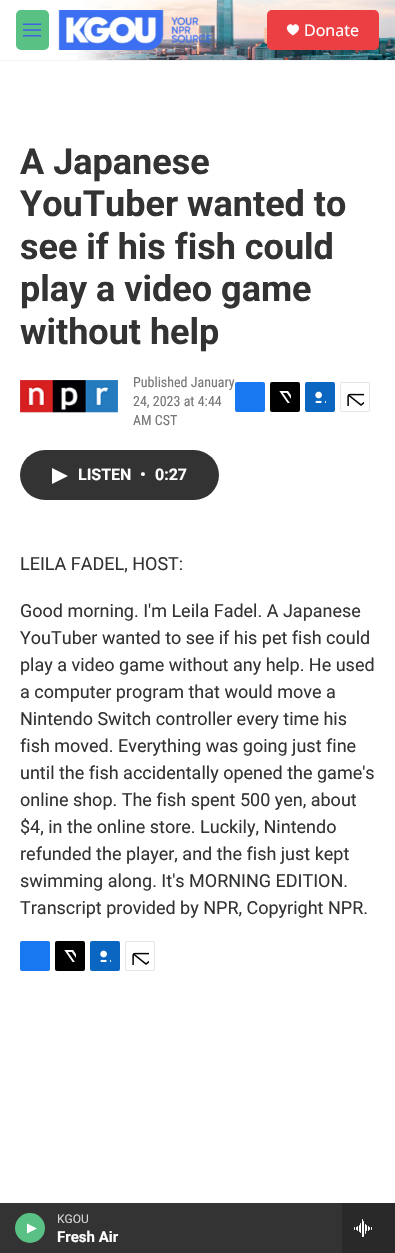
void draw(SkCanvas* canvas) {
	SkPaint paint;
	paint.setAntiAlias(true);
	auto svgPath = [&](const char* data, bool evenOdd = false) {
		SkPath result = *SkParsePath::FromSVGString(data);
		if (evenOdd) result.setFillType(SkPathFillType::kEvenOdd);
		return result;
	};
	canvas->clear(0xffffffff);
	paint.setColor(0xfff5f5f5);
	canvas->drawRect(SkRect::MakeXYWH(0, 60, 395, 1), paint);
	canvas->drawImageRect(SkImages::DeferredFromEncodedData(SkData::MakeFromFileName("img1.png")), SkRect::MakeXYWH(77, 0, 318, 60), SkSamplingOptions());
	paint.setColor(0xff59c183);
	canvas->drawRoundRect(SkRect::MakeXYWH(16, 10, 33, 40), 5, 5, paint);
	canvas->drawImageRect(SkImages::DeferredFromEncodedData(SkData::MakeFromFileName("img2.png")), SkRect::MakeXYWH(23, 23, 18, 14), SkSamplingOptions());
	canvas->drawImageRect(SkImages::DeferredFromEncodedData(SkData::MakeFromFileName("img3.png")), SkRect::MakeXYWH(58, 10, 154, 40), SkSamplingOptions());
	paint.setColor(0xffeb3f43);
	canvas->drawRoundRect(SkRect::MakeXYWH(267, 10, 112, 40), 5, 5, paint);
	paint.setColor(0xffffffff);
	canvas->drawPath(svgPath("M293 26C291 21 280.5 28 293 35.5C305.5 28 295 21 293 26Z"), paint);
	SkFont f1(fontMgr->matchFamilyStyle("Noto Sans", SkFontStyle::Normal()), 16);
	f1.setSubpixel(true);
	canvas->drawString("Donate", 304, 36, f1, paint);
	paint.setColor(0xff333333);
	canvas->drawRect(SkRect::MakeXYWH(0, 1203, 342, 50), paint);
	paint.setColor(0xff59c183);
	canvas->drawCircle(30, 1228, 15, paint);
	paint.setColor(0xffffffff);
	canvas->drawPath(svgPath("M27 1223.5L37 1228.5L27 1233.5Z"), paint);
	SkFont f2(fontMgr->matchFamilyStyle("Roboto", SkFontStyle::Normal()), 12);
	f2.setSubpixel(true);
	paint.setColor(0xffd6d6d6);
	canvas->drawString("KGOU", 57, 1223, f2, paint);
	SkFont f3(fontMgr->matchFamilyStyle("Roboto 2", SkFontStyle::Bold()), 15);
	f3.setSubpixel(true);
	paint.setColor(0xffffffff);
	canvas->drawString("Fresh Air", 57, 1242, f3, paint);
	paint.setColor(0xff292929);
	canvas->drawRect(SkRect::MakeXYWH(342, 1203, 53, 50), paint);
	canvas->drawImageRect(SkImages::DeferredFromEncodedData(SkData::MakeFromFileName("img4.png")), SkRect::MakeXYWH(354, 1219, 18, 18), SkSamplingOptions());
	SkFont f4(fontMgr->matchFamilyStyle("Roboto", SkFontStyle::Bold()), 36);
	f4.setSubpixel(true);
	paint.setColor(0xff333333);
	canvas->drawString("A Japanese", 20, 174, f4, paint);
	canvas->drawString("YouTuber wanted to", 20, 216, f4, paint);
	canvas->drawString("see if his fish could", 20, 259, f4, paint);
	canvas->drawString("play a video game", 20, 301, f4, paint);
	canvas->drawString("without help", 20, 344, f4, paint);
	canvas->drawImageRect(SkImages::DeferredFromEncodedData(SkData::MakeFromFileName("img5.png")), SkRect::MakeXYWH(20, 380, 98, 33), SkSamplingOptions());
	SkFont f5(fontMgr->matchFamilyStyle("Roboto Condensed", SkFontStyle::Normal()), 14);
	f5.setSubpixel(true);
	paint.setColor(0xff767676);
	canvas->drawString("Published January", 133, 387, f5, paint);
	canvas->drawString("24, 2023 at 4:44", 133, 406, f5, paint);
	canvas->drawString("AM CST", 133, 425, f5, paint);
	paint.setColor(0xff1778f2);
	canvas->drawRoundRect(SkRect::MakeXYWH(235, 382, 30, 30), 2, 2, paint);
	paint.setColor(0xff000000);
	canvas->drawRoundRect(SkRect::MakeXYWH(270, 382, 30, 30), 2, 2, paint);
	canvas->drawImageRect(SkImages::DeferredFromEncodedData(SkData::MakeFromFileName("img6.png")), SkRect::MakeXYWH(279, 391, 12, 12), SkSamplingOptions());
	paint.setColor(0xff0a66c1);
	canvas->drawRoundRect(SkRect::MakeXYWH(305, 382, 30, 30), 2, 2, paint);
	canvas->drawImageRect(SkImages::DeferredFromEncodedData(SkData::MakeFromFileName("img7.png")), SkRect::MakeXYWH(315, 391, 11, 12), SkSamplingOptions());
	paint.setStroke(true);
	paint.setStrokeWidth(1);
	paint.setColor(0xffe6e6e6);
	canvas->drawRoundRect(SkRect::MakeXYWH(340.5, 382.5, 29, 29), 1.5, 1.5, paint);
	canvas->drawImageRect(SkImages::DeferredFromEncodedData(SkData::MakeFromFileName("img8.png")), SkRect::MakeXYWH(347, 393, 17, 13), SkSamplingOptions());
	paint.setStroke(false);
	paint.setColor(0xff333333);
	canvas->drawRoundRect(SkRect::MakeXYWH(20, 450, 199, 50), 25, 25, paint);
	paint.setColor(0xffffffff);
	canvas->drawPath(svgPath("M52 468L68 476L52 484Z"), paint);
	SkFont f6(fontMgr->matchFamilyStyle("Roboto 2", SkFontStyle::Bold()), 16);
	f6.setSubpixel(true);
	canvas->drawString("LISTEN", 78, 480, f6, paint);
	canvas->drawString("•", 140, 480, f6, paint);
	canvas->drawString("0:27", 155, 480, f6, paint);
	SkFont f7(fontMgr->matchFamilyStyle("Roboto", SkFontStyle::Normal()), 18);
	f7.setSubpixel(true);
	paint.setColor(0xff333333);
	canvas->drawString("LEILA FADEL, HOST:", 20, 570, f7, paint);
	canvas->drawString("Good morning. I'm Leila Fadel. A Japanese", 20, 617, f7, paint);
	canvas->drawString("YouTuber wanted to see if his pet fish could", 20, 644, f7, paint);
	canvas->drawString("play a video game without any help. He used", 20, 671, f7, paint);
	canvas->drawString("a computer program that would move a", 20, 698, f7, paint);
	canvas->drawString("Nintendo Switch controller every time his", 20, 725, f7, paint);
	canvas->drawString("fish moved. Everything was going just fine", 20, 752, f7, paint);
	canvas->drawString("until the fish accidentally opened the game's", 20, 779, f7, paint);
	canvas->drawString("online shop. The fish spent 500 yen, about", 20, 806, f7, paint);
	canvas->drawString("$4, in the online store. Luckily, Nintendo", 20, 833, f7, paint);
	canvas->drawString("refunded the player, and the fish just kept", 20, 860, f7, paint);
	canvas->drawString("swimming along. It's MORNING EDITION.", 20, 887, f7, paint);
	canvas->drawString("Transcript provided by NPR, Copyright NPR.", 20, 914, f7, paint);
	paint.setColor(0xff1778f2);
	canvas->drawRoundRect(SkRect::MakeXYWH(20, 941, 30, 30), 2, 2, paint);
	paint.setColor(0xff000000);
	canvas->drawRoundRect(SkRect::MakeXYWH(55, 941, 30, 30), 2, 2, paint);
	canvas->drawImageRect(SkImages::DeferredFromEncodedData(SkData::MakeFromFileName("img6.png")), SkRect::MakeXYWH(64, 950, 12, 12), SkSamplingOptions());
	paint.setColor(0xff0a66c1);
	canvas->drawRoundRect(SkRect::MakeXYWH(90, 941, 30, 30), 2, 2, paint);
	canvas->drawImageRect(SkImages::DeferredFromEncodedData(SkData::MakeFromFileName("img7.png")), SkRect::MakeXYWH(100, 950, 11, 12), SkSamplingOptions());
	paint.setStroke(true);
	paint.setColor(0xffe6e6e6);
	canvas->drawRoundRect(SkRect::MakeXYWH(125.5, 941.5, 29, 29), 1.5, 1.5, paint);
	canvas->drawImageRect(SkImages::DeferredFromEncodedData(SkData::MakeFromFileName("img8.png")), SkRect::MakeXYWH(132, 952, 17, 13), SkSamplingOptions());
}
